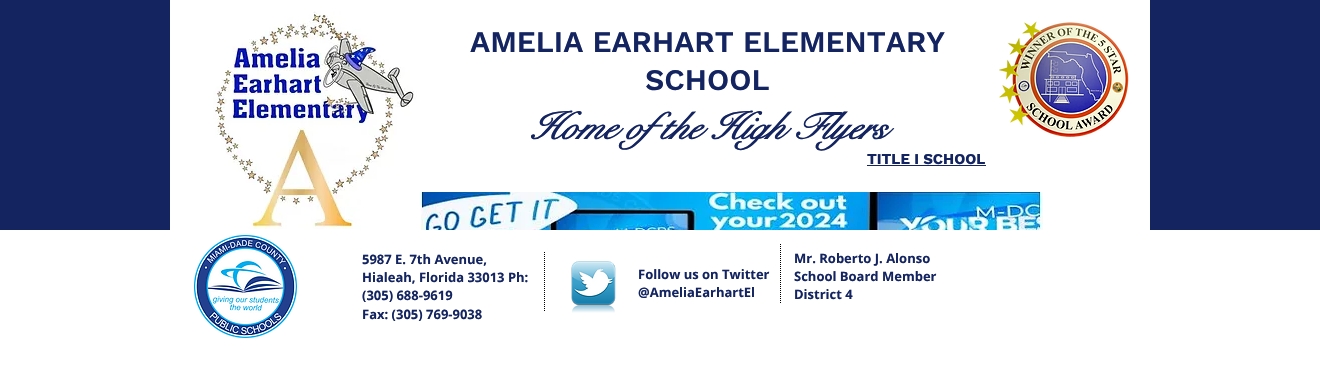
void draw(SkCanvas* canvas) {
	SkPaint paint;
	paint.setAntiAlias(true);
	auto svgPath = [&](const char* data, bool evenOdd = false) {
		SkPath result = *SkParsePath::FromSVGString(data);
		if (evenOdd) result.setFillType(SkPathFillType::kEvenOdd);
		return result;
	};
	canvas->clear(0xff132460);
	paint.setColor(0xffffffff);
	canvas->drawRect(SkRect::MakeXYWH(170, 0, 980, 230), paint);
	canvas->drawImageRect(SkImages::DeferredFromEncodedData(SkData::MakeFromFileName("img1.png")), SkRect::MakeXYWH(213, 11, 204, 218), SkSamplingOptions());
	SkFont f1(fontMgr->matchFamilyStyle("Work Sans", SkFontStyle(600, SkFontStyle::kNormal_Width, SkFontStyle::kUpright_Slant)), 30);
	f1.setSubpixel(true);
	paint.setColor(0xff132460);
	canvas->drawString("AMELIA EARHART ELEMENTARY", 470, 52, f1, paint);
	canvas->drawString("SCHOOL", 645, 90, f1, paint);
	SkFont f2(fontMgr->matchFamilyStyle("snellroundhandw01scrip", SkFontStyle::BoldItalic()), 38);
	f2.setSubpixel(true);
	canvas->drawString("Home of the High Flyers", 529, 139, f2, paint);
	canvas->drawImageRect(SkImages::DeferredFromEncodedData(SkData::MakeFromFileName("img2.png")), SkRect::MakeXYWH(999, 21, 130, 116), SkSamplingOptions());
	SkFont f3(fontMgr->matchFamilyStyle("Work Sans", SkFontStyle::Bold()), 15);
	f3.setSubpixel(true);
	canvas->drawString("TITLE I SCHOOL", 867, 164, f3, paint);
	canvas->drawRect(SkRect::MakeXYWH(867, 165, 119, 1), paint);
	canvas->drawImageRect(SkImages::DeferredFromEncodedData(SkData::MakeFromFileName("img3.png")), SkRect::MakeXYWH(421, 192, 622, 38), SkSamplingOptions());
	paint.setColor(0xffffffff);
	canvas->drawRect(SkRect::MakeXYWH(0, 230, 1320, 142), paint);
	canvas->drawImageRect(SkImages::DeferredFromEncodedData(SkData::MakeFromFileName("img4.png")), SkRect::MakeXYWH(194, 235, 103, 103), SkSamplingOptions());
	SkFont f4(fontMgr->matchFamilyStyle("Open Sans", SkFontStyle::Bold()), 13);
	f4.setSubpixel(true);
	paint.setColor(0xff132460);
	canvas->drawString("5987 E. 7th Avenue,", 362, 264, f4, paint);
	canvas->drawString("Hialeah, Florida 33013 Ph:", 362, 282, f4, paint);
	canvas->drawString("(305) 688-9619", 362, 300, f4, paint);
	canvas->drawString("Fax: (305) 769-9038", 362, 319, f4, paint);
	paint.setStroke(true);
	paint.setStrokeWidth(1);
	paint.setColor(0xff000000);
	paint.setPathEffect(SkDashPathEffect::Make({{1, 1}}, 0));
	canvas->drawPath(svgPath("M544.5 252V312"), paint);
	paint.setPathEffect(nullptr);
	canvas->drawImageRect(SkImages::DeferredFromEncodedData(SkData::MakeFromFileName("img5.png")), SkRect::MakeXYWH(571, 261, 45, 52), SkSamplingOptions());
	paint.setStroke(false);
	paint.setColor(0xff132460);
	canvas->drawString("Follow us on Twitter", 638, 279, f4, paint);
	canvas->drawString("@AmeliaEarhartEl", 638, 297, f4, paint);
	paint.setStroke(true);
	paint.setColor(0xff000000);
	paint.setPathEffect(SkDashPathEffect::Make({{1, 1}}, 0));
	canvas->drawPath(svgPath("M780.5 244V304"), paint);
	paint.setPathEffect(nullptr);
	paint.setStroke(false);
	paint.setColor(0xff132460);
	canvas->drawString("Mr. Roberto J. Alonso", 794, 263, f4, paint);
	canvas->drawString("School Board Member", 794, 281, f4, paint);
	canvas->drawString("District 4", 794, 299, f4, paint);
}
